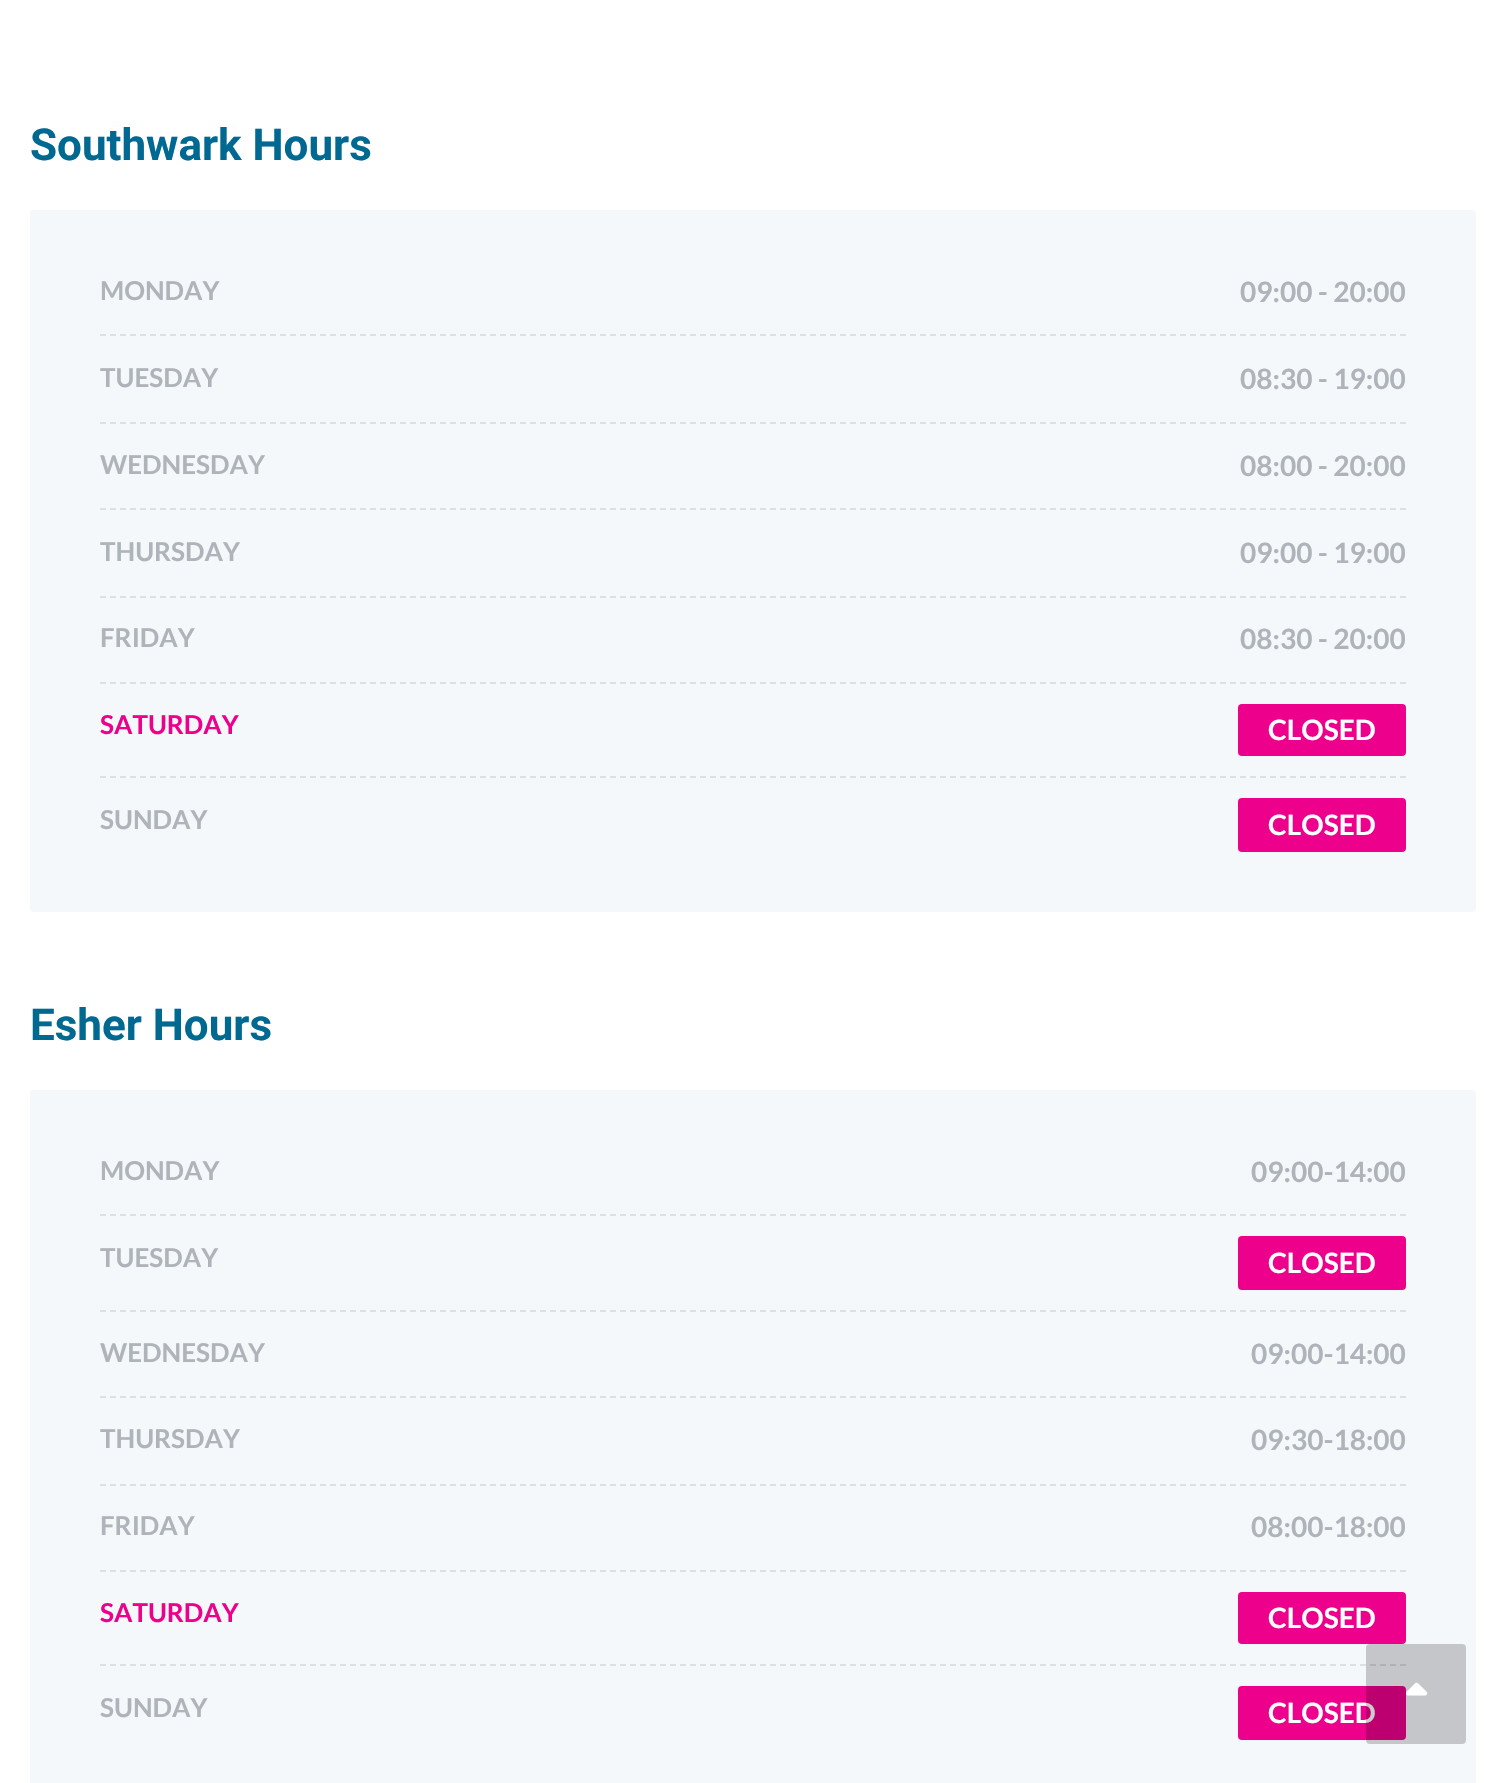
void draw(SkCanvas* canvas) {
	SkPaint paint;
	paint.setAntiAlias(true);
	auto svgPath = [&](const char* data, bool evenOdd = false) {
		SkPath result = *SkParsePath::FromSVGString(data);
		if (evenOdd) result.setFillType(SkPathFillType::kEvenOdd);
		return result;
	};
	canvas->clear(0xffffffff);
	SkFont f1(fontMgr->matchFamilyStyle("Roboto", SkFontStyle::Bold()), 44);
	f1.setSubpixel(true);
	paint.setColor(0xff006991);
	canvas->drawString("Southwark Hours", 30, 160, f1, paint);
	paint.setColor(0xfff5f8fb);
	canvas->drawRoundRect(SkRect::MakeXYWH(30, 210, 1446, 702), 4, 4, paint);
	paint.setStroke(true);
	paint.setStrokeWidth(2);
	paint.setColor(0xffdddfe2);
	paint.setPathEffect(SkDashPathEffect::Make({{6, 4}}, 0));
	canvas->drawPath(svgPath("M100 335H1406"), paint);
	paint.setPathEffect(nullptr);
	SkFont f2(fontMgr->matchFamilyStyle("Lato", SkFontStyle::Bold()), 26);
	f2.setSubpixel(true);
	paint.setStroke(false);
	paint.setColor(0xffafb4ba);
	canvas->drawString("MONDAY", 100, 300, f2, paint);
	SkFont f3(fontMgr->matchFamilyStyle("Lato", SkFontStyle::Bold()), 28);
	f3.setSubpixel(true);
	canvas->drawString("09:00 - 20:00", 1240, 302, f3, paint);
	paint.setStroke(true);
	paint.setColor(0xffdddfe2);
	paint.setPathEffect(SkDashPathEffect::Make({{6, 4}}, 0));
	canvas->drawPath(svgPath("M100 423H1406"), paint);
	paint.setPathEffect(nullptr);
	paint.setStroke(false);
	paint.setColor(0xffafb4ba);
	canvas->drawString("TUESDAY", 100, 387, f2, paint);
	canvas->drawString("08:30 - 19:00", 1240, 389, f3, paint);
	paint.setStroke(true);
	paint.setColor(0xffdddfe2);
	paint.setPathEffect(SkDashPathEffect::Make({{6, 4}}, 0));
	canvas->drawPath(svgPath("M100 509H1406"), paint);
	paint.setPathEffect(nullptr);
	paint.setStroke(false);
	paint.setColor(0xffafb4ba);
	canvas->drawString("WEDNESDAY", 100, 474, f2, paint);
	canvas->drawString("08:00 - 20:00", 1240, 476, f3, paint);
	paint.setStroke(true);
	paint.setColor(0xffdddfe2);
	paint.setPathEffect(SkDashPathEffect::Make({{6, 4}}, 0));
	canvas->drawPath(svgPath("M100 597H1406"), paint);
	paint.setPathEffect(nullptr);
	paint.setStroke(false);
	paint.setColor(0xffafb4ba);
	canvas->drawString("THURSDAY", 100, 561, f2, paint);
	canvas->drawString("09:00 - 19:00", 1240, 563, f3, paint);
	paint.setStroke(true);
	paint.setColor(0xffdddfe2);
	paint.setPathEffect(SkDashPathEffect::Make({{6, 4}}, 0));
	canvas->drawPath(svgPath("M100 683H1406"), paint);
	paint.setPathEffect(nullptr);
	paint.setStroke(false);
	paint.setColor(0xffafb4ba);
	canvas->drawString("FRIDAY", 100, 647, f2, paint);
	canvas->drawString("08:30 - 20:00", 1240, 649, f3, paint);
	paint.setStroke(true);
	paint.setColor(0xffdddfe2);
	paint.setPathEffect(SkDashPathEffect::Make({{6, 4}}, 0));
	canvas->drawPath(svgPath("M100 777H1406"), paint);
	paint.setPathEffect(nullptr);
	paint.setStroke(false);
	paint.setColor(0xffec008c);
	canvas->drawString("SATURDAY", 100, 734, f2, paint);
	canvas->drawRoundRect(SkRect::MakeXYWH(1238, 704, 168, 52), 4, 4, paint);
	paint.setColor(0xffffffff);
	canvas->drawString("CLOSED", 1268, 740, f3, paint);
	paint.setColor(0xffafb4ba);
	canvas->drawString("SUNDAY", 100, 829, f2, paint);
	paint.setColor(0xffec008c);
	canvas->drawRoundRect(SkRect::MakeXYWH(1238, 798, 168, 54), 4, 4, paint);
	paint.setColor(0xffffffff);
	canvas->drawString("CLOSED", 1268, 835, f3, paint);
	paint.setColor(0xff006991);
	canvas->drawString("Esher Hours", 30, 1040, f1, paint);
	paint.setColor(0xfff5f8fb);
	canvas->drawRoundRect(SkRect::MakeXYWH(30, 1090, 1446, 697), 4, 4, paint);
	paint.setStroke(true);
	paint.setColor(0xffdddfe2);
	paint.setPathEffect(SkDashPathEffect::Make({{6, 4}}, 0));
	canvas->drawPath(svgPath("M100 1215H1406"), paint);
	paint.setPathEffect(nullptr);
	paint.setStroke(false);
	paint.setColor(0xffafb4ba);
	canvas->drawString("MONDAY", 100, 1180, f2, paint);
	canvas->drawString("09:00-14:00", 1251, 1182, f3, paint);
	paint.setStroke(true);
	paint.setColor(0xffdddfe2);
	paint.setPathEffect(SkDashPathEffect::Make({{6, 4}}, 0));
	canvas->drawPath(svgPath("M100 1311H1406"), paint);
	paint.setPathEffect(nullptr);
	paint.setStroke(false);
	paint.setColor(0xffafb4ba);
	canvas->drawString("TUESDAY", 100, 1267, f2, paint);
	paint.setColor(0xffec008c);
	canvas->drawRoundRect(SkRect::MakeXYWH(1238, 1236, 168, 54), 4, 4, paint);
	paint.setColor(0xffffffff);
	canvas->drawString("CLOSED", 1268, 1273, f3, paint);
	paint.setStroke(true);
	paint.setColor(0xffdddfe2);
	paint.setPathEffect(SkDashPathEffect::Make({{6, 4}}, 0));
	canvas->drawPath(svgPath("M100 1397H1406"), paint);
	paint.setPathEffect(nullptr);
	paint.setStroke(false);
	paint.setColor(0xffafb4ba);
	canvas->drawString("WEDNESDAY", 100, 1362, f2, paint);
	canvas->drawString("09:00-14:00", 1251, 1364, f3, paint);
	paint.setStroke(true);
	paint.setColor(0xffdddfe2);
	paint.setPathEffect(SkDashPathEffect::Make({{6, 4}}, 0));
	canvas->drawPath(svgPath("M100 1485H1406"), paint);
	paint.setPathEffect(nullptr);
	paint.setStroke(false);
	paint.setColor(0xffafb4ba);
	canvas->drawString("THURSDAY", 100, 1448, f2, paint);
	canvas->drawString("09:30-18:00", 1251, 1450, f3, paint);
	paint.setStroke(true);
	paint.setColor(0xffdddfe2);
	paint.setPathEffect(SkDashPathEffect::Make({{6, 4}}, 0));
	canvas->drawPath(svgPath("M100 1571H1406"), paint);
	paint.setPathEffect(nullptr);
	paint.setStroke(false);
	paint.setColor(0xffafb4ba);
	canvas->drawString("FRIDAY", 100, 1535, f2, paint);
	canvas->drawString("08:00-18:00", 1251, 1537, f3, paint);
	paint.setStroke(true);
	paint.setColor(0xffdddfe2);
	paint.setPathEffect(SkDashPathEffect::Make({{6, 4}}, 0));
	canvas->drawPath(svgPath("M100 1665H1406"), paint);
	paint.setPathEffect(nullptr);
	paint.setStroke(false);
	paint.setColor(0xffec008c);
	canvas->drawString("SATURDAY", 100, 1622, f2, paint);
	canvas->drawRoundRect(SkRect::MakeXYWH(1238, 1592, 168, 52), 4, 4, paint);
	paint.setColor(0xffffffff);
	canvas->drawString("CLOSED", 1268, 1628, f3, paint);
	paint.setColor(0xffafb4ba);
	canvas->drawString("SUNDAY", 100, 1717, f2, paint);
	paint.setColor(0xffec008c);
	canvas->drawRoundRect(SkRect::MakeXYWH(1238, 1686, 168, 54), 4, 4, paint);
	paint.setColor(0xffffffff);
	canvas->drawString("CLOSED", 1268, 1723, f3, paint);
	paint.setColor(0x33000000);
	canvas->drawRoundRect(SkRect::MakeXYWH(1366, 1644, 100, 100), 4, 4, paint);
	canvas->drawImageRect(SkImages::DeferredFromEncodedData(SkData::MakeFromFileName("img1.png")), SkRect::MakeXYWH(1406, 1682, 22, 14), SkSamplingOptions());
}
